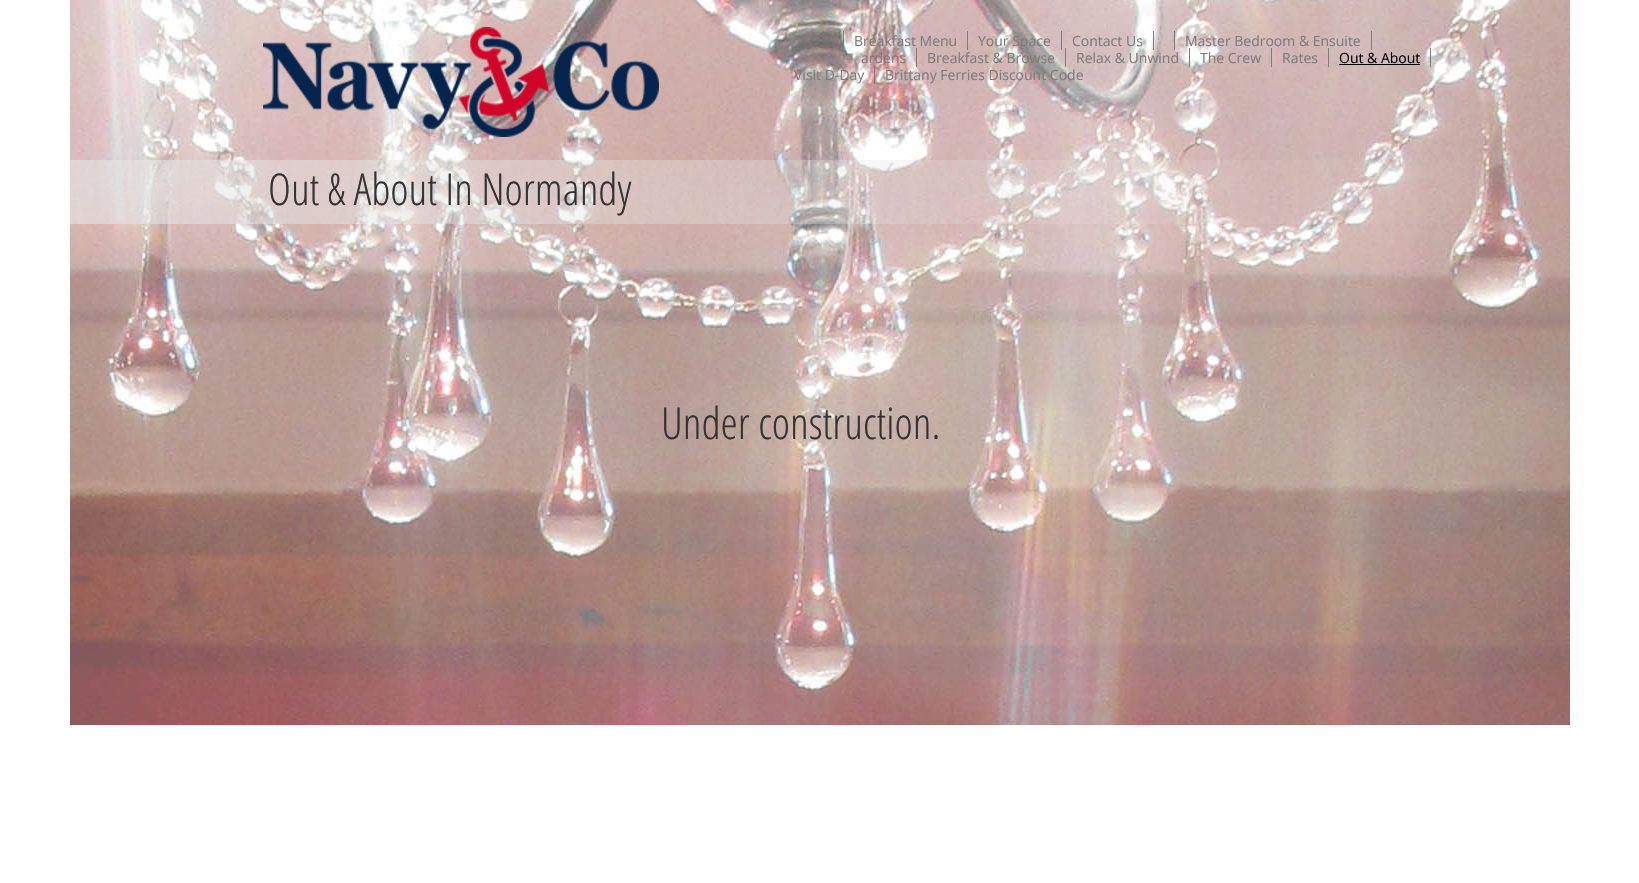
void draw(SkCanvas* canvas) {
	SkPaint paint;
	paint.setAntiAlias(true);
	canvas->clear(0xffffffff);
	canvas->drawImageRect(SkImages::DeferredFromEncodedData(SkData::MakeFromFileName("img1.png")), SkRect::MakeXYWH(70, 0, 1500, 725), SkSamplingOptions());
	canvas->drawImageRect(SkImages::DeferredFromEncodedData(SkData::MakeFromFileName("img2.png")), SkRect::MakeXYWH(263, 27, 396, 110), SkSamplingOptions());
	paint.setColor(0xff7c7c7c);
	canvas->drawRect(SkRect::MakeXYWH(843, 31, 1, 19), paint);
	SkFont f1(fontMgr->matchFamilyStyle("Open Sans", SkFontStyle::Normal()), 14);
	f1.setSubpixel(true);
	canvas->drawString("Breakfast Menu", 854, 46, f1, paint);
	canvas->drawRect(SkRect::MakeXYWH(967, 31, 1, 19), paint);
	canvas->drawString("Your Space", 978, 46, f1, paint);
	canvas->drawRect(SkRect::MakeXYWH(1061, 31, 1, 19), paint);
	canvas->drawString("Contact Us", 1072, 46, f1, paint);
	canvas->drawRect(SkRect::MakeXYWH(1153, 31, 1, 19), paint);
	canvas->drawRect(SkRect::MakeXYWH(1174, 31, 1, 19), paint);
	canvas->drawString("Master Bedroom & Ensuite", 1185, 46, f1, paint);
	canvas->drawRect(SkRect::MakeXYWH(1371, 31, 1, 19), paint);
	canvas->drawString("ardens", 861, 63, f1, paint);
	canvas->drawRect(SkRect::MakeXYWH(916, 48, 1, 19), paint);
	canvas->drawString("Breakfast & Browse", 927, 63, f1, paint);
	canvas->drawRect(SkRect::MakeXYWH(1065, 48, 1, 19), paint);
	canvas->drawString("Relax & Unwind", 1076, 63, f1, paint);
	canvas->drawRect(SkRect::MakeXYWH(1189, 48, 1, 19), paint);
	canvas->drawString("The Crew", 1200, 63, f1, paint);
	canvas->drawRect(SkRect::MakeXYWH(1271, 48, 1, 19), paint);
	canvas->drawString("Rates", 1282, 63, f1, paint);
	canvas->drawRect(SkRect::MakeXYWH(1328, 48, 1, 19), paint);
	paint.setColor(0xff000000);
	canvas->drawString("Out & About", 1339, 63, f1, paint);
	paint.setColor(0xff7c7c7c);
	canvas->drawRect(SkRect::MakeXYWH(1430, 48, 1, 19), paint);
	paint.setColor(0xff000000);
	canvas->drawRect(SkRect::MakeXYWH(1339, 64, 81, 1), paint);
	paint.setColor(0xff7c7c7c);
	canvas->drawString("Visit D-Day", 794, 80, f1, paint);
	canvas->drawRect(SkRect::MakeXYWH(874, 65, 1, 19), paint);
	canvas->drawString("Brittany Ferries Discount Code", 885, 80, f1, paint);
	SkFont f2(fontMgr->matchFamilyStyle("Open Sans Condensed", SkFontStyle(300, SkFontStyle::kNormal_Width, SkFontStyle::kUpright_Slant)), 44);
	f2.setSubpixel(true);
	paint.setColor(0xff333333);
	canvas->drawString("Out & About In Normandy", 268, 205, f2, paint);
	canvas->drawString("Under construction.", 661, 439, f2, paint);
}
